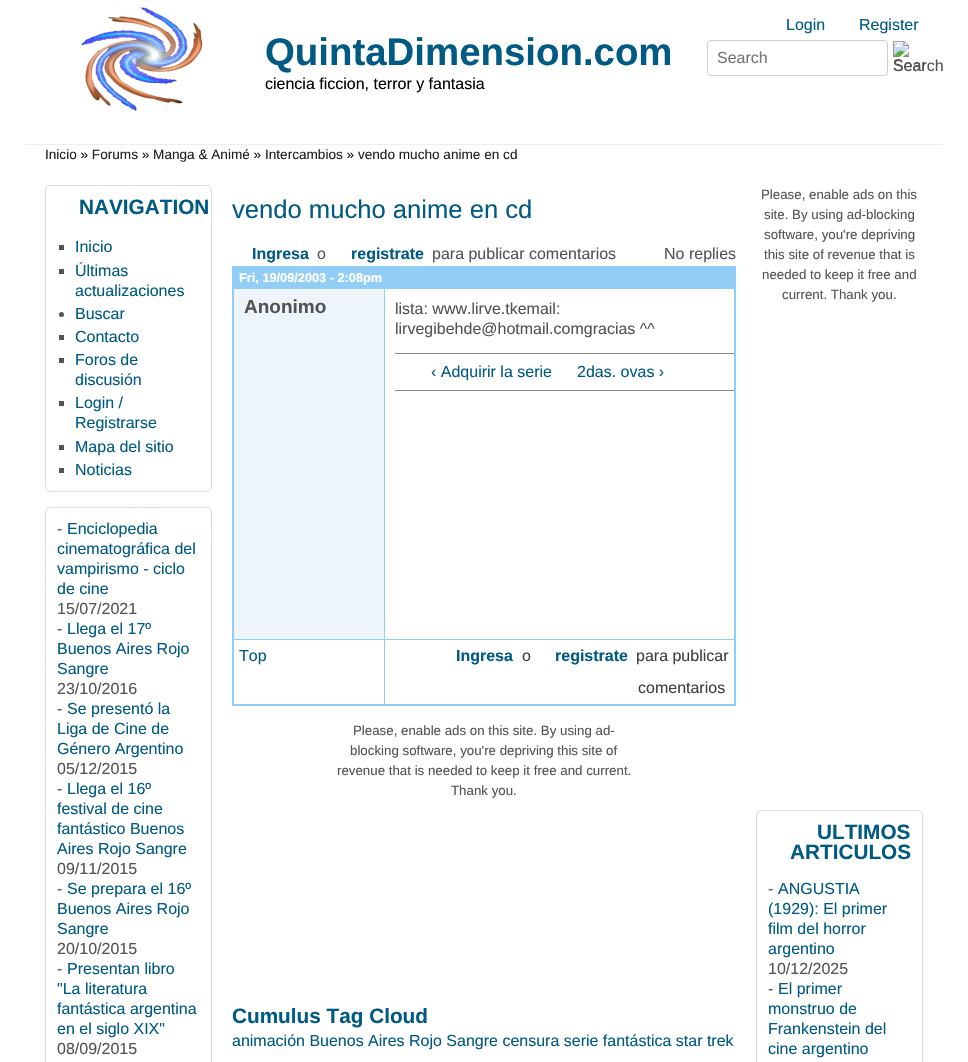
void draw(SkCanvas* canvas) {
	SkPaint paint;
	paint.setAntiAlias(true);
	canvas->clear(0xffffffff);
	paint.setColor(0xffeeeeee);
	canvas->drawRect(SkRect::MakeXYWH(25, 144, 918, 1), paint);
	canvas->drawImageRect(SkImages::DeferredFromEncodedData(SkData::MakeFromFileName("img1.png")), SkRect::MakeXYWH(81, 2, 122, 109), SkSamplingOptions());
	SkFont f1(fontMgr->matchFamilyStyle("Liberation Sans", SkFontStyle::Bold()), 38.4);
	f1.setSubpixel(true);
	paint.setColor(0xff005a84);
	canvas->drawString("QuintaDimension.com", 265, 65, f1, paint);
	SkFont f2(fontMgr->matchFamilyStyle("Liberation Sans", SkFontStyle::Normal()), 16);
	f2.setSubpixel(true);
	paint.setColor(0xff000000);
	canvas->drawString("ciencia ficcion, terror y fantasia", 265, 89, f2, paint);
	paint.setColor(0xff005a84);
	canvas->drawString("Login", 786, 30, f2, paint);
	canvas->drawString("Register", 859, 30, f2, paint);
	paint.setStroke(true);
	paint.setStrokeWidth(1);
	paint.setColor(0xffcccccc);
	canvas->drawRoundRect(SkRect::MakeXYWH(707.5, 40.5, 180, 35), 3.5, 3.5, paint);
	paint.setStroke(false);
	paint.setColor(0xff757575);
	canvas->drawString("Search", 717, 63, f2, paint);
	canvas->drawImageRect(SkImages::DeferredFromEncodedData(SkData::MakeFromFileName("img2.png")), SkRect::MakeXYWH(893, 41, 32, 30), SkSamplingOptions());
	paint.setColor(0xff535353);
	canvas->drawString("Search", 893, 71, f2, paint);
	SkFont f3(fontMgr->matchFamilyStyle("Liberation Sans", SkFontStyle::Normal()), 13.6);
	f3.setSubpixel(true);
	paint.setColor(0xff1e201b);
	canvas->drawString("Inicio » Forums » Manga & Animé » Intercambios » vendo mucho anime en cd", 45, 159, f3, paint);
	paint.setStroke(true);
	paint.setColor(0xffdddddd);
	canvas->drawRoundRect(SkRect::MakeXYWH(45.5, 185.5, 166, 306), 4.5, 4.5, paint);
	SkFont f4(fontMgr->matchFamilyStyle("Liberation Sans", SkFontStyle::Bold()), 20.75);
	f4.setSubpixel(true);
	paint.setStroke(false);
	paint.setColor(0xff005a84);
	canvas->drawString("NAVIGATION", 79, 214, f4, paint);
	paint.setColor(0xff535353);
	canvas->drawRect(SkRect::MakeXYWH(59, 245, 5, 5), paint);
	paint.setColor(0xff005a84);
	canvas->drawString("Inicio", 75, 252, f2, paint);
	paint.setColor(0xff535353);
	canvas->drawRect(SkRect::MakeXYWH(59, 269, 5, 5), paint);
	paint.setColor(0xff005a84);
	canvas->drawString("Últimas", 75, 276, f2, paint);
	canvas->drawString("actualizaciones", 75, 296, f2, paint);
	paint.setColor(0xff535353);
	canvas->drawCircle(61.5, 314.5, 2.5, paint);
	paint.setColor(0xff005a84);
	canvas->drawString("Buscar", 75, 319, f2, paint);
	paint.setColor(0xff535353);
	canvas->drawRect(SkRect::MakeXYWH(59, 335, 5, 5), paint);
	paint.setColor(0xff005a84);
	canvas->drawString("Contacto", 75, 342, f2, paint);
	paint.setColor(0xff535353);
	canvas->drawRect(SkRect::MakeXYWH(59, 358, 5, 5), paint);
	paint.setColor(0xff005a84);
	canvas->drawString("Foros de", 75, 365, f2, paint);
	canvas->drawString("discusión", 75, 385, f2, paint);
	paint.setColor(0xff535353);
	canvas->drawRect(SkRect::MakeXYWH(59, 401, 5, 5), paint);
	paint.setColor(0xff005a84);
	canvas->drawString("Login /", 75, 408, f2, paint);
	canvas->drawString("Registrarse", 75, 428, f2, paint);
	paint.setColor(0xff535353);
	canvas->drawRect(SkRect::MakeXYWH(59, 445, 5, 5), paint);
	paint.setColor(0xff005a84);
	canvas->drawString("Mapa del sitio", 75, 452, f2, paint);
	paint.setColor(0xff535353);
	canvas->drawRect(SkRect::MakeXYWH(59, 468, 5, 5), paint);
	paint.setColor(0xff005a84);
	canvas->drawString("Noticias", 75, 475, f2, paint);
	paint.setStroke(true);
	paint.setColor(0xffdddddd);
	canvas->drawRoundRect(SkRect::MakeXYWH(45.5, 507.5, 166, 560), 4.5, 4.5, paint);
	paint.setStroke(false);
	paint.setColor(0xff535353);
	canvas->drawString("-", 57, 534, f2, paint);
	paint.setColor(0xff005a84);
	canvas->drawString("Enciclopedia", 67, 534, f2, paint);
	canvas->drawString("cinematográfica del", 57, 554, f2, paint);
	canvas->drawString("vampirismo - ciclo", 57, 574, f2, paint);
	canvas->drawString("de cine", 57, 594, f2, paint);
	paint.setColor(0xff535353);
	canvas->drawString("15/07/2021", 57, 614, f2, paint);
	canvas->drawString("-", 57, 634, f2, paint);
	paint.setColor(0xff005a84);
	canvas->drawString("Llega el 17º", 67, 634, f2, paint);
	canvas->drawString("Buenos Aires Rojo", 57, 654, f2, paint);
	canvas->drawString("Sangre", 57, 674, f2, paint);
	paint.setColor(0xff535353);
	canvas->drawString("23/10/2016", 57, 694, f2, paint);
	canvas->drawString("-", 57, 714, f2, paint);
	paint.setColor(0xff005a84);
	canvas->drawString("Se presentó la", 67, 714, f2, paint);
	canvas->drawString("Liga de Cine de", 57, 734, f2, paint);
	canvas->drawString("Género Argentino", 57, 754, f2, paint);
	paint.setColor(0xff535353);
	canvas->drawString("05/12/2015", 57, 774, f2, paint);
	canvas->drawString("-", 57, 794, f2, paint);
	paint.setColor(0xff005a84);
	canvas->drawString("Llega el 16º", 67, 794, f2, paint);
	canvas->drawString("festival de cine", 57, 814, f2, paint);
	canvas->drawString("fantástico Buenos", 57, 834, f2, paint);
	canvas->drawString("Aires Rojo Sangre", 57, 854, f2, paint);
	paint.setColor(0xff535353);
	canvas->drawString("09/11/2015", 57, 874, f2, paint);
	canvas->drawString("-", 57, 894, f2, paint);
	paint.setColor(0xff005a84);
	canvas->drawString("Se prepara el 16º", 67, 894, f2, paint);
	canvas->drawString("Buenos Aires Rojo", 57, 914, f2, paint);
	canvas->drawString("Sangre", 57, 934, f2, paint);
	paint.setColor(0xff535353);
	canvas->drawString("20/10/2015", 57, 954, f2, paint);
	canvas->drawString("-", 57, 974, f2, paint);
	paint.setColor(0xff005a84);
	canvas->drawString("Presentan libro", 67, 974, f2, paint);
	canvas->drawString("\"La literatura", 57, 994, f2, paint);
	canvas->drawString("fantástica argentina", 57, 1014, f2, paint);
	canvas->drawString("en el siglo XIX\"", 57, 1034, f2, paint);
	paint.setColor(0xff535353);
	canvas->drawString("08/09/2015", 57, 1054, f2, paint);
	SkFont f5(fontMgr->matchFamilyStyle("Liberation Sans", SkFontStyle::Normal()), 25.6);
	f5.setSubpixel(true);
	paint.setColor(0xff005a84);
	canvas->drawString("vendo mucho anime en cd", 232, 218, f5, paint);
	SkFont f6(fontMgr->matchFamilyStyle("Liberation Sans", SkFontStyle::Bold()), 16);
	f6.setSubpixel(true);
	canvas->drawString("Ingresa", 252, 259, f6, paint);
	paint.setColor(0xff535353);
	canvas->drawString("o", 317, 259, f2, paint);
	paint.setColor(0xff005a84);
	canvas->drawString("registrate", 351, 259, f6, paint);
	paint.setColor(0xff535353);
	canvas->drawString("para publicar comentarios", 432, 259, f2, paint);
	canvas->drawString("No replies", 664, 259, f2, paint);
	paint.setStroke(true);
	paint.setStrokeWidth(2);
	paint.setColor(0xff91cdf5);
	canvas->drawRect(SkRect::MakeXYWH(233, 267, 502, 438), paint);
	paint.setStroke(false);
	canvas->drawRect(SkRect::MakeXYWH(234, 268, 500, 21), paint);
	SkFont f7(fontMgr->matchFamilyStyle("Liberation Sans", SkFontStyle::Bold()), 12.75);
	f7.setSubpixel(true);
	paint.setColor(0xffffffff);
	canvas->drawString("Fri, 19/09/2003 - 2:08pm", 239, 282, f7, paint);
	paint.setColor(0xffedf5fa);
	canvas->drawRect(SkRect::MakeXYWH(234, 289, 150, 350), paint);
	SkFont f8(fontMgr->matchFamilyStyle("Liberation Sans", SkFontStyle::Bold()), 19);
	f8.setSubpixel(true);
	paint.setColor(0xff535353);
	canvas->drawString("Anonimo", 244, 313, f8, paint);
	paint.setColor(0xff91cdf5);
	canvas->drawRect(SkRect::MakeXYWH(384, 289, 1, 350), paint);
	paint.setColor(0xff535353);
	canvas->drawString("lista: www.lirve.tkemail:", 395, 314, f2, paint);
	canvas->drawString("lirvegibehde@hotmail.comgracias ^^", 395, 334, f2, paint);
	paint.setColor(0xff888888);
	canvas->drawRect(SkRect::MakeXYWH(395, 353, 339, 1), paint);
	canvas->drawRect(SkRect::MakeXYWH(395, 390, 339, 1), paint);
	paint.setColor(0xff005a84);
	canvas->drawString("‹ Adquirir la serie", 431, 377, f2, paint);
	canvas->drawString("2das. ovas ›", 577, 377, f2, paint);
	paint.setColor(0xff91cdf5);
	canvas->drawRect(SkRect::MakeXYWH(234, 639, 500, 1), paint);
	paint.setColor(0xff005a84);
	canvas->drawString("Top", 239, 661, f2, paint);
	paint.setColor(0xff91cdf5);
	canvas->drawRect(SkRect::MakeXYWH(384, 640, 1, 64), paint);
	paint.setColor(0xff005a84);
	canvas->drawString("Ingresa", 456, 661, f6, paint);
	paint.setColor(0xff3f3f3f);
	canvas->drawString("o", 522, 661, f2, paint);
	paint.setColor(0xff005a84);
	canvas->drawString("registrate", 555, 661, f6, paint);
	paint.setColor(0xff3f3f3f);
	canvas->drawString("para publicar", 636, 661, f2, paint);
	canvas->drawString("comentarios", 638, 693, f2, paint);
	SkFont f9(fontMgr->matchFamilyStyle("Liberation Sans", SkFontStyle::Normal()), 13.3);
	f9.setSubpixel(true);
	paint.setColor(0xff535353);
	canvas->drawString("Please, enable ads on this site. By using ad-", 353, 735, f9, paint);
	canvas->drawString("blocking software, you're depriving this site of", 350, 755, f9, paint);
	canvas->drawString("revenue that is needed to keep it free and current.", 337, 775, f9, paint);
	canvas->drawString("Thank you.", 451, 795, f9, paint);
	paint.setColor(0xff005a84);
	canvas->drawString("Cumulus Tag Cloud", 232, 1023, f4, paint);
	canvas->drawString("animación Buenos Aires Rojo Sangre censura serie fantástica star trek", 232, 1046, f2, paint);
	paint.setColor(0xff535353);
	canvas->drawString("Please, enable ads on this", 761, 199, f9, paint);
	canvas->drawString("site. By using ad-blocking", 764, 219, f9, paint);
	canvas->drawString("software, you're depriving", 764, 239, f9, paint);
	canvas->drawString("this site of revenue that is", 764, 259, f9, paint);
	canvas->drawString("needed to keep it free and", 762, 279, f9, paint);
	canvas->drawString("current. Thank you.", 782, 299, f9, paint);
	paint.setStroke(true);
	paint.setStrokeWidth(1);
	paint.setColor(0xffdddddd);
	canvas->drawRoundRect(SkRect::MakeXYWH(756.5, 810.5, 166, 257), 4.5, 4.5, paint);
	paint.setStroke(false);
	paint.setColor(0xff005a84);
	canvas->drawString("ULTIMOS", 817, 839, f4, paint);
	canvas->drawString("ARTICULOS", 790, 859, f4, paint);
	paint.setColor(0xff535353);
	canvas->drawString("-", 768, 894, f2, paint);
	paint.setColor(0xff005a84);
	canvas->drawString("ANGUSTIA", 778, 894, f2, paint);
	canvas->drawString("(1929): El primer", 768, 914, f2, paint);
	canvas->drawString("film del horror", 768, 934, f2, paint);
	canvas->drawString("argentino", 768, 954, f2, paint);
	paint.setColor(0xff535353);
	canvas->drawString("10/12/2025", 768, 974, f2, paint);
	canvas->drawString("-", 768, 994, f2, paint);
	paint.setColor(0xff005a84);
	canvas->drawString("El primer", 778, 994, f2, paint);
	canvas->drawString("monstruo de", 768, 1014, f2, paint);
	canvas->drawString("Frankenstein del", 768, 1034, f2, paint);
	canvas->drawString("cine argentino", 768, 1054, f2, paint);
}
